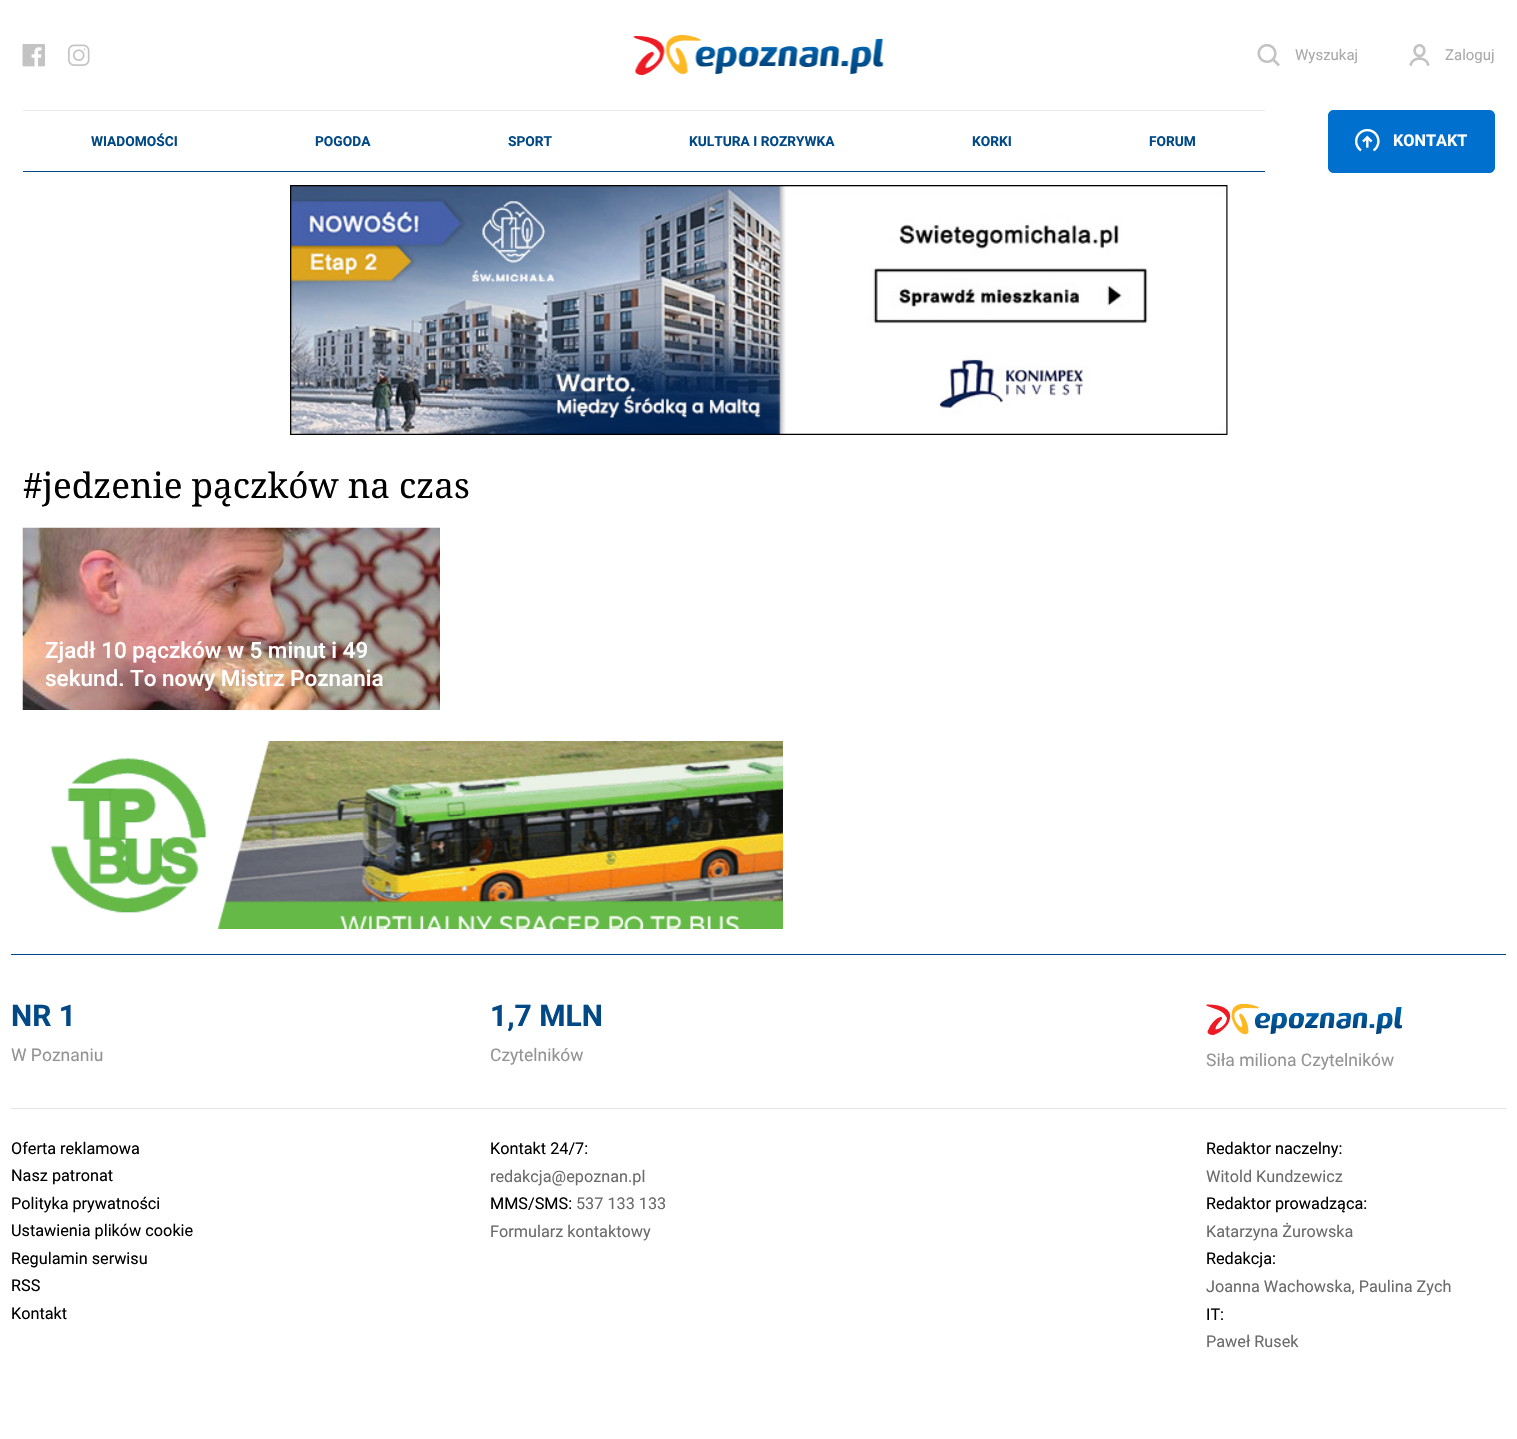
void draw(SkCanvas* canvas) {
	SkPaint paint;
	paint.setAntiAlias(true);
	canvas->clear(0xffffffff);
	canvas->drawImageRect(SkImages::DeferredFromEncodedData(SkData::MakeFromFileName("img1.png")), SkRect::MakeXYWH(22, 44, 23, 23), SkSamplingOptions());
	canvas->drawImageRect(SkImages::DeferredFromEncodedData(SkData::MakeFromFileName("img2.png")), SkRect::MakeXYWH(68, 44, 22, 22), SkSamplingOptions());
	canvas->drawImageRect(SkImages::DeferredFromEncodedData(SkData::MakeFromFileName("img3.png")), SkRect::MakeXYWH(633, 35, 251, 40), SkSamplingOptions());
	canvas->drawImageRect(SkImages::DeferredFromEncodedData(SkData::MakeFromFileName("img4.png")), SkRect::MakeXYWH(1257, 43, 23, 24), SkSamplingOptions());
	SkFont f1(fontMgr->matchFamilyStyle("Roboto", SkFontStyle::Normal()), 15);
	f1.setSubpixel(true);
	paint.setColor(0xffaaaaaa);
	canvas->drawString("Wyszukaj", 1295, 60, f1, paint);
	canvas->drawImageRect(SkImages::DeferredFromEncodedData(SkData::MakeFromFileName("img5.png")), SkRect::MakeXYWH(1409, 44, 21, 22), SkSamplingOptions());
	canvas->drawString("Zaloguj", 1445, 60, f1, paint);
	paint.setColor(0xffe8e8e8);
	canvas->drawRect(SkRect::MakeXYWH(23, 110, 1242, 1), paint);
	paint.setColor(0xff004986);
	canvas->drawRect(SkRect::MakeXYWH(23, 171, 1242, 1), paint);
	SkFont f2(fontMgr->matchFamilyStyle("Roboto", SkFontStyle::Bold()), 13.75);
	f2.setSubpixel(true);
	canvas->drawString("WIADOMOŚCI", 91, 146, f2, paint);
	canvas->drawString("POGODA", 315, 146, f2, paint);
	canvas->drawString("SPORT", 508, 146, f2, paint);
	canvas->drawString("KULTURA I ROZRYWKA", 689, 146, f2, paint);
	canvas->drawString("KORKI", 972, 146, f2, paint);
	canvas->drawString("FORUM", 1149, 146, f2, paint);
	paint.setColor(0xff0070ce);
	canvas->drawRoundRect(SkRect::MakeXYWH(1328, 110, 167, 63), 6, 6, paint);
	canvas->drawImageRect(SkImages::DeferredFromEncodedData(SkData::MakeFromFileName("img6.png")), SkRect::MakeXYWH(1355, 128, 25, 24), SkSamplingOptions());
	paint.setStroke(true);
	paint.setStrokeWidth(3);
	canvas->drawRoundRect(SkRect::MakeXYWH(1329.5, 111.5, 164, 60), 4.5, 4.5, paint);
	SkFont f3(fontMgr->matchFamilyStyle("Roboto", SkFontStyle::Bold()), 16.25);
	f3.setSubpixel(true);
	paint.setStroke(false);
	paint.setColor(0xffffffff);
	canvas->drawString("KONTAKT", 1393, 146, f3, paint);
	canvas->drawImageRect(SkImages::DeferredFromEncodedData(SkData::MakeFromFileName("img7.png")), SkRect::MakeXYWH(290, 185, 938, 250), SkSamplingOptions());
	SkFont f4(fontMgr->matchFamilyStyle("Noto Serif", SkFontStyle::Normal()), 35);
	f4.setSubpixel(true);
	paint.setColor(0xff000000);
	canvas->drawString("#jedzenie pączków na czas", 23, 498, f4, paint);
	canvas->drawImageRect(SkImages::DeferredFromEncodedData(SkData::MakeFromFileName("img8.png")), SkRect::MakeXYWH(22, 527, 418, 183), SkSamplingOptions());
	SkFont f5(fontMgr->matchFamilyStyle("Roboto", SkFontStyle(500, SkFontStyle::kNormal_Width, SkFontStyle::kUpright_Slant)), 22.5);
	f5.setSubpixel(true);
	paint.setColor(0xffffffff);
	canvas->drawString("Zjadł 10 pączków w 5 minut i 49", 45, 658, f5, paint);
	canvas->drawString("sekund. To nowy Mistrz Poznania", 45, 686, f5, paint);
	canvas->drawImageRect(SkImages::DeferredFromEncodedData(SkData::MakeFromFileName("img9.png")), SkRect::MakeXYWH(50, 741, 733, 188), SkSamplingOptions());
	paint.setColor(0xff004986);
	canvas->drawRect(SkRect::MakeXYWH(11, 954, 1495, 1), paint);
	SkFont f6(fontMgr->matchFamilyStyle("Roboto", SkFontStyle::Bold()), 30);
	f6.setSubpixel(true);
	canvas->drawString("NR 1", 11, 1026, f6, paint);
	SkFont f7(fontMgr->matchFamilyStyle("Roboto", SkFontStyle::Normal()), 17.5);
	f7.setSubpixel(true);
	paint.setColor(0xff939393);
	canvas->drawString("W Poznaniu", 11, 1061, f7, paint);
	paint.setColor(0xff004986);
	canvas->drawString("1,7 MLN", 490, 1026, f6, paint);
	paint.setColor(0xff939393);
	canvas->drawString("Czytelników", 490, 1061, f7, paint);
	canvas->drawImageRect(SkImages::DeferredFromEncodedData(SkData::MakeFromFileName("img10.png")), SkRect::MakeXYWH(1206, 1004, 196, 31), SkSamplingOptions());
	canvas->drawString("Siła miliona Czytelników", 1206, 1066, f7, paint);
	paint.setColor(0xffe3e3e3);
	canvas->drawRect(SkRect::MakeXYWH(11, 1108, 1495, 1), paint);
	SkFont f8(fontMgr->matchFamilyStyle("Roboto", SkFontStyle::Normal()), 16.25);
	f8.setSubpixel(true);
	paint.setColor(0xff000000);
	canvas->drawString("Oferta reklamowa", 11, 1154, f8, paint);
	canvas->drawString("Nasz patronat", 11, 1181, f8, paint);
	canvas->drawString("Polityka prywatności", 11, 1209, f8, paint);
	canvas->drawString("Ustawienia plików cookie", 11, 1236, f8, paint);
	canvas->drawString("Regulamin serwisu", 11, 1264, f8, paint);
	canvas->drawString("RSS", 11, 1291, f8, paint);
	canvas->drawString("Kontakt", 11, 1319, f8, paint);
	canvas->drawString("Kontakt 24/7:", 490, 1154, f8, paint);
	paint.setColor(0xff6a6a6a);
	canvas->drawString("redakcja@epoznan.pl", 490, 1182, f8, paint);
	paint.setColor(0xff000000);
	canvas->drawString("MMS/SMS:", 490, 1209, f8, paint);
	paint.setColor(0xff6a6a6a);
	canvas->drawString("537 133 133", 576, 1209, f8, paint);
	canvas->drawString("Formularz kontaktowy", 490, 1237, f8, paint);
	paint.setColor(0xff000000);
	canvas->drawString("Redaktor naczelny:", 1206, 1154, f8, paint);
	paint.setColor(0xff6a6a6a);
	canvas->drawString("Witold Kundzewicz", 1206, 1182, f8, paint);
	paint.setColor(0xff000000);
	canvas->drawString("Redaktor prowadząca:", 1206, 1209, f8, paint);
	paint.setColor(0xff6a6a6a);
	canvas->drawString("Katarzyna Żurowska", 1206, 1237, f8, paint);
	paint.setColor(0xff000000);
	canvas->drawString("Redakcja:", 1206, 1264, f8, paint);
	paint.setColor(0xff6a6a6a);
	canvas->drawString("Joanna Wachowska, Paulina Zych", 1206, 1292, f8, paint);
	paint.setColor(0xff000000);
	canvas->drawString("IT:", 1206, 1320, f8, paint);
	paint.setColor(0xff6a6a6a);
	canvas->drawString("Paweł Rusek", 1206, 1347, f8, paint);
}
